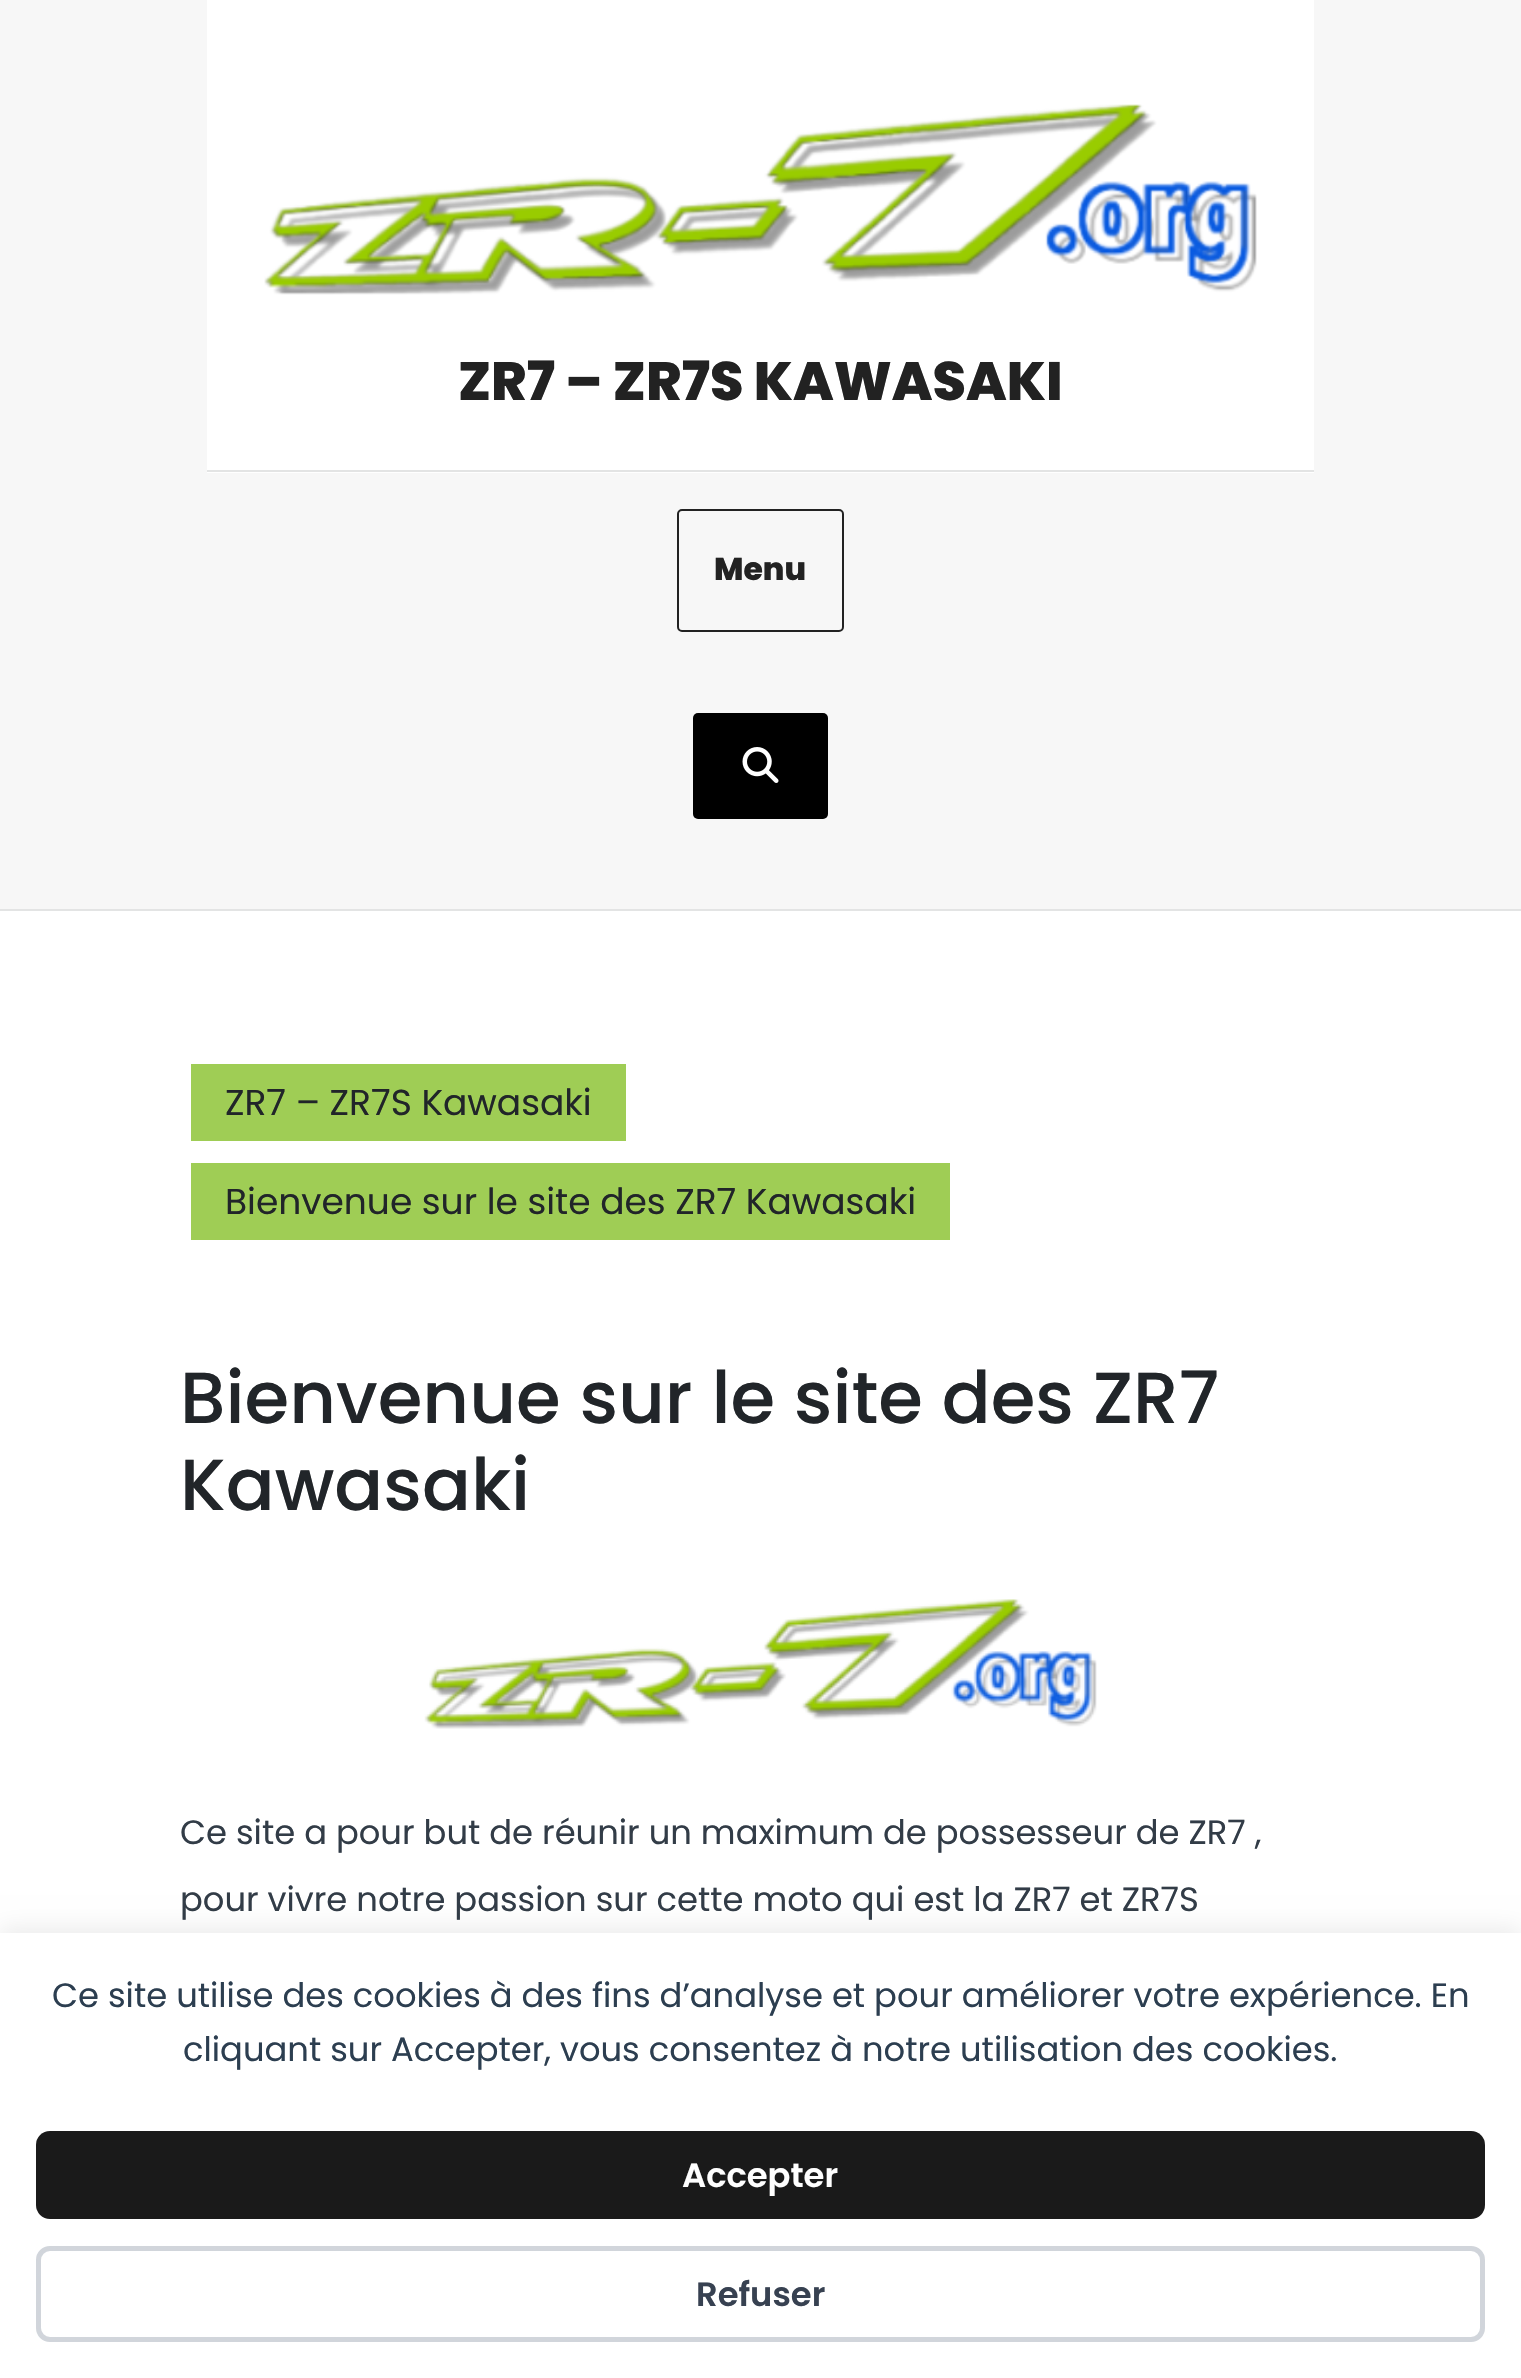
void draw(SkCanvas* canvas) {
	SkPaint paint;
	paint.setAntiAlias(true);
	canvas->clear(0xffffffff);
	paint.setColor(0xfff7f7f7);
	canvas->drawRect(SkRect::MakeXYWH(0, 0, 1521, 909), paint);
	paint.setColor(0xffe3e4e4);
	canvas->drawRect(SkRect::MakeXYWH(0, 909, 1521, 2), paint);
	paint.setColor(0xffffffff);
	canvas->drawRect(SkRect::MakeXYWH(207, 0, 1107, 473), paint);
	paint.setColor(0xffe3e4e4);
	canvas->drawRect(SkRect::MakeXYWH(207, 470, 1107, 2), paint);
	canvas->drawImageRect(SkImages::DeferredFromEncodedData(SkData::MakeFromFileName("img1.png")), SkRect::MakeXYWH(264, 104, 993, 191), SkSamplingOptions());
	SkFont f1(fontMgr->matchFamilyStyle("Poppins", SkFontStyle(800, SkFontStyle::kNormal_Width, SkFontStyle::kUpright_Slant)), 54);
	f1.setSubpixel(true);
	paint.setColor(0xff222222);
	canvas->drawString("ZR7 – ZR7S KAWASAKI", 458, 400, f1, paint);
	paint.setStroke(true);
	paint.setStrokeWidth(2);
	canvas->drawRoundRect(SkRect::MakeXYWH(678, 510, 165, 121), 4, 4, paint);
	SkFont f2(fontMgr->matchFamilyStyle("Poppins", SkFontStyle(800, SkFontStyle::kNormal_Width, SkFontStyle::kUpright_Slant)), 31.5);
	f2.setSubpixel(true);
	paint.setStroke(false);
	canvas->drawString("Menu", 714, 580, f2, paint);
	paint.setColor(0xff000000);
	canvas->drawRoundRect(SkRect::MakeXYWH(693, 713, 135, 106), 5, 5, paint);
	canvas->drawImageRect(SkImages::DeferredFromEncodedData(SkData::MakeFromFileName("img2.png")), SkRect::MakeXYWH(742, 747, 37, 36), SkSamplingOptions());
	paint.setColor(0xff9fcd55);
	canvas->drawRect(SkRect::MakeXYWH(191, 1064, 435, 77), paint);
	SkFont f3(fontMgr->matchFamilyStyle("Poppins", SkFontStyle::Normal()), 36);
	f3.setSubpixel(true);
	paint.setColor(0xff212529);
	canvas->drawString("ZR7 – ZR7S Kawasaki", 225, 1115, f3, paint);
	paint.setColor(0xff9fcd55);
	canvas->drawRect(SkRect::MakeXYWH(191, 1163, 759, 77), paint);
	paint.setColor(0xff212529);
	canvas->drawString("Bienvenue sur le site des ZR7 Kawasaki", 225, 1214, f3, paint);
	SkFont f4(fontMgr->matchFamilyStyle("Poppins", SkFontStyle(500, SkFontStyle::kNormal_Width, SkFontStyle::kUpright_Slant)), 72.25);
	f4.setSubpixel(true);
	canvas->drawString("Bienvenue sur le site des ZR7", 180, 1423, f4, paint);
	canvas->drawString("Kawasaki", 180, 1510, f4, paint);
	canvas->drawImageRect(SkImages::DeferredFromEncodedData(SkData::MakeFromFileName("img3.png")), SkRect::MakeXYWH(424, 1599, 673, 130), SkSamplingOptions());
	SkFont f5(fontMgr->matchFamilyStyle("Poppins", SkFontStyle::Normal()), 33.75);
	f5.setSubpixel(true);
	paint.setColor(0xff323c47);
	canvas->drawString("Ce site a pour but de réunir un maximum de possesseur de ZR7 ,", 180, 1844, f5, paint);
	canvas->drawString("pour vivre notre passion sur cette moto qui est la ZR7 et ZR7S", 180, 1911, f5, paint);
	paint.setColor(0x14000000);
	paint.setMaskFilter(SkMaskFilter::MakeBlur(kNormal_SkBlurStyle, 11));
	canvas->drawRect(SkRect::MakeXYWH(0, 1928, 1521, 446), paint);
	paint.setMaskFilter(nullptr);
	paint.setColor(0xffffffff);
	canvas->drawRect(SkRect::MakeXYWH(0, 1933, 1521, 445), paint);
	paint.setColor(0xff2c3e50);
	canvas->drawString("Ce site utilise des cookies à des fins d’analyse et pour améliorer votre expérience. En", 52, 2007, f5, paint);
	canvas->drawString("cliquant sur Accepter, vous consentez à notre utilisation des cookies.", 183, 2061, f5, paint);
	paint.setColor(0xff1a1a1a);
	canvas->drawRoundRect(SkRect::MakeXYWH(36, 2131, 1449, 88), 14, 14, paint);
	SkFont f6(fontMgr->matchFamilyStyle("Poppins", SkFontStyle(600, SkFontStyle::kNormal_Width, SkFontStyle::kUpright_Slant)), 33.75);
	f6.setSubpixel(true);
	paint.setColor(0xffffffff);
	canvas->drawString("Accepter", 682, 2187, f6, paint);
	paint.setStroke(true);
	paint.setStrokeWidth(5);
	paint.setColor(0xffd1d5db);
	canvas->drawRoundRect(SkRect::MakeXYWH(38.5, 2248.5, 1444, 91), 11.5, 11.5, paint);
	paint.setStroke(false);
	paint.setColor(0xff374151);
	canvas->drawString("Refuser", 696, 2306, f6, paint);
}
